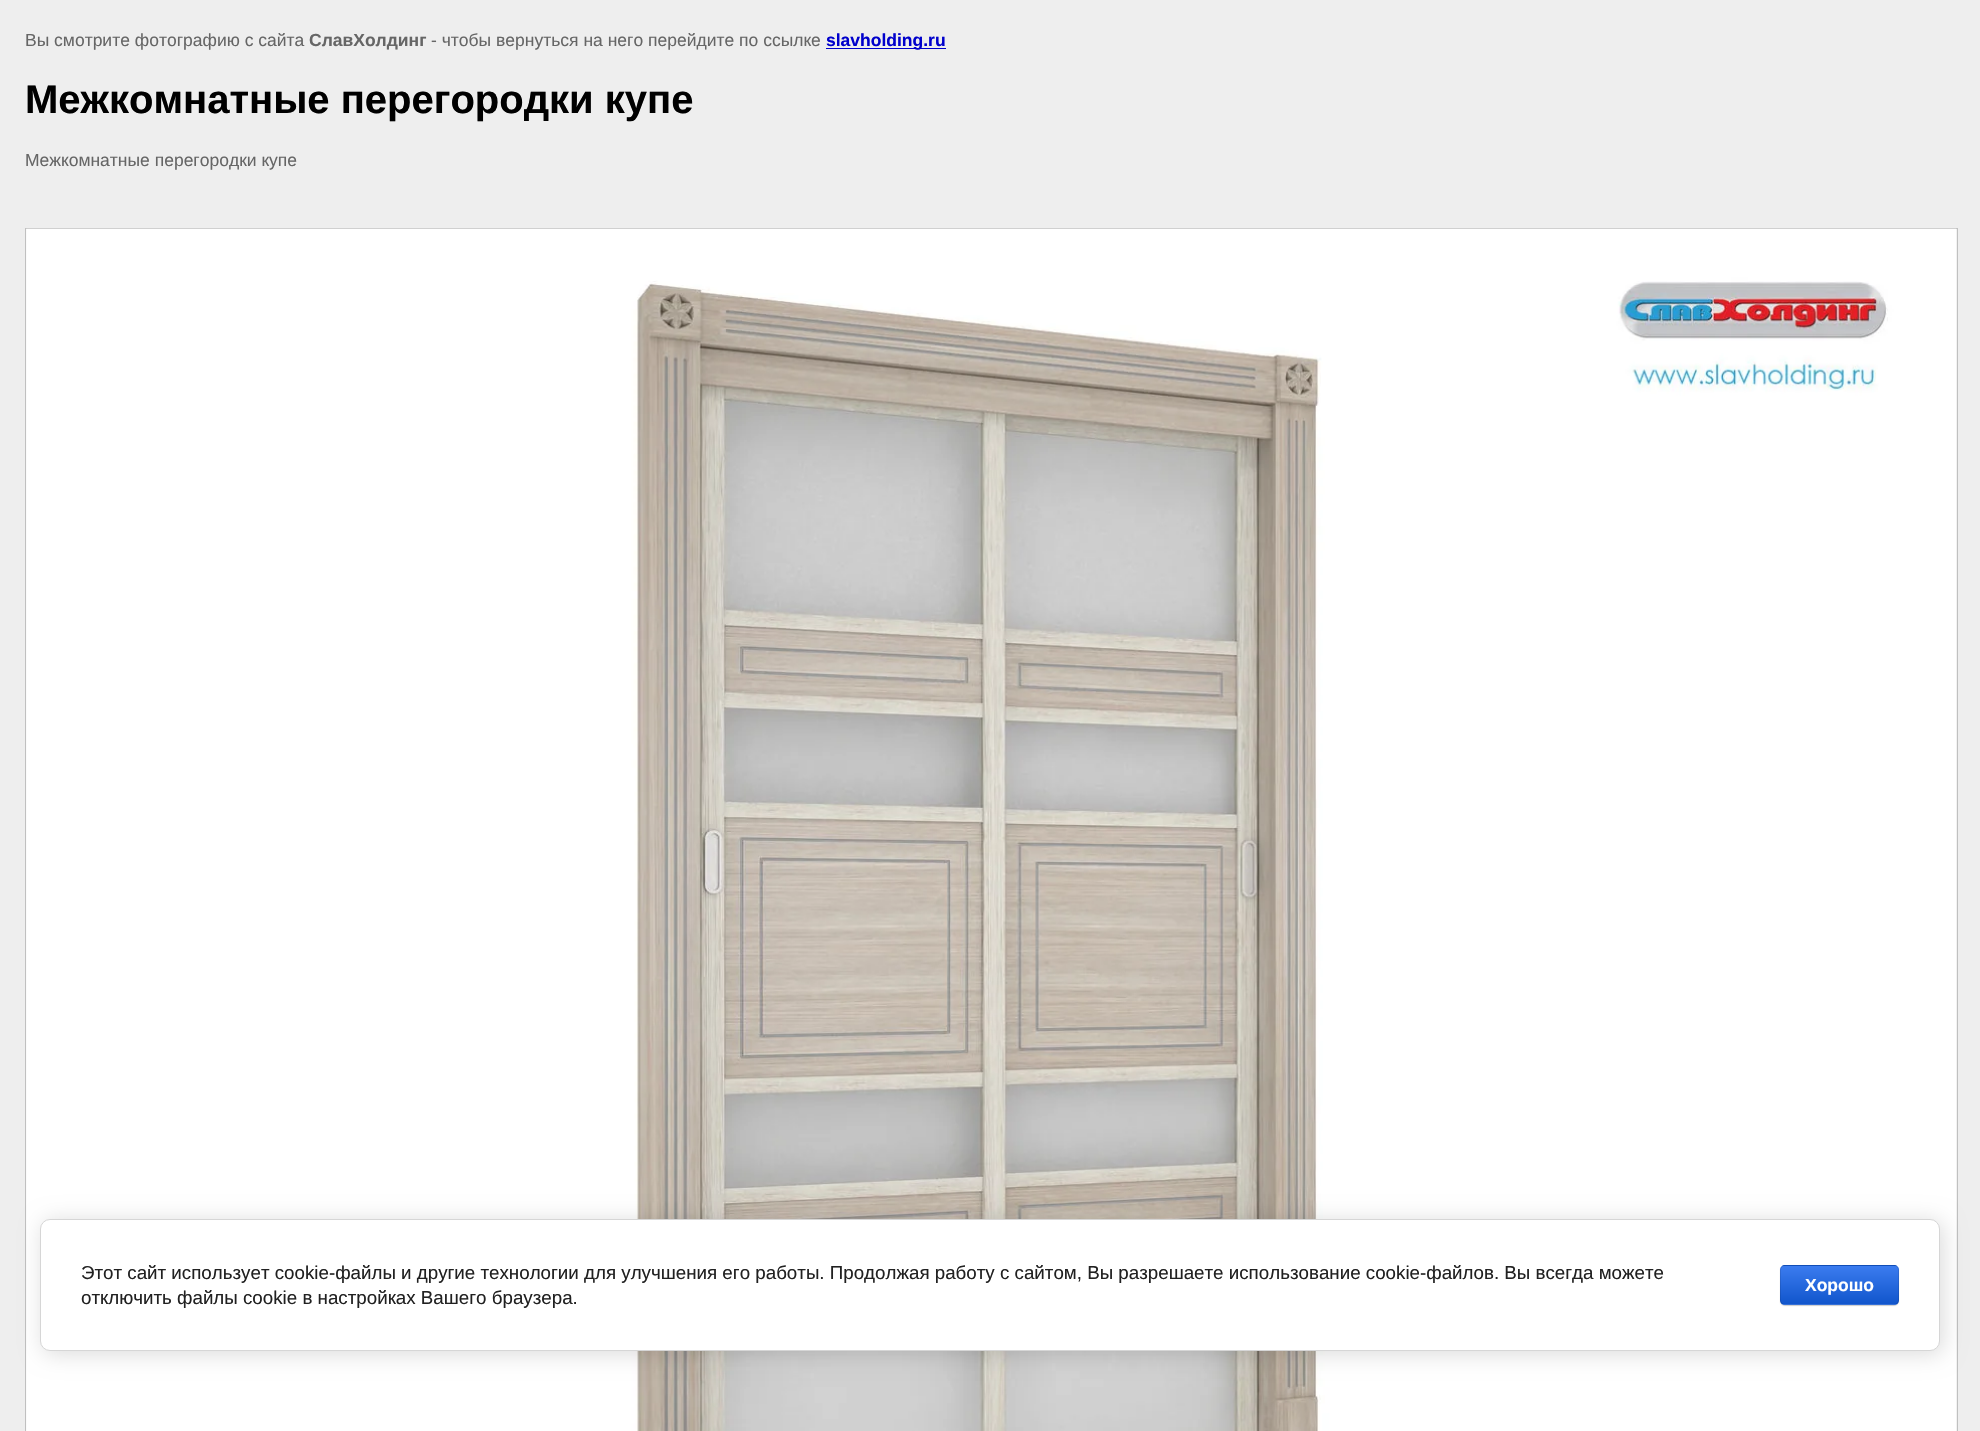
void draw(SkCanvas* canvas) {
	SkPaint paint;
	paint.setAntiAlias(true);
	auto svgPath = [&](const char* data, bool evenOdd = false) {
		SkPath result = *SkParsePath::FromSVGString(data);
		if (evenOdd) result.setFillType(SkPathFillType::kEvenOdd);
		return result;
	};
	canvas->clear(0xffeeeeee);
	SkFont f1(fontMgr->matchFamilyStyle("Liberation Sans", SkFontStyle::Normal()), 17.5);
	f1.setSubpixel(true);
	paint.setColor(0xff666666);
	canvas->drawString("Вы смотрите фотографию с сайта", 25, 46, f1, paint);
	SkFont f2(fontMgr->matchFamilyStyle("Liberation Sans", SkFontStyle::Bold()), 17.5);
	f2.setSubpixel(true);
	canvas->drawString("СлавХолдинг", 309, 46, f2, paint);
	canvas->drawString("- чтобы вернуться на него перейдите по ссылке", 431, 46, f1, paint);
	paint.setColor(0xff0000cc);
	canvas->drawRect(SkRect::MakeXYWH(826, 48, 120, 1), paint);
	canvas->drawString("slavholding.ru", 826, 46, f2, paint);
	SkFont f3(fontMgr->matchFamilyStyle("Liberation Sans", SkFontStyle::Bold()), 40);
	f3.setSubpixel(true);
	paint.setColor(0xff000000);
	canvas->drawString("Межкомнатные перегородки купе", 25, 113, f3, paint);
	paint.setColor(0xff666666);
	canvas->drawString("Межкомнатные перегородки купе", 25, 166, f1, paint);
	paint.setStroke(true);
	paint.setStrokeWidth(1);
	paint.setColor(0xffc0c0c0);
	canvas->drawRect(SkRect::MakeXYWH(25.5, 228.5, 1932, 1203), paint);
	canvas->drawImageRect(SkImages::DeferredFromEncodedData(SkData::MakeFromFileName("img1.png")), SkRect::MakeXYWH(26, 228, 1931, 1203), SkSamplingOptions());
	paint.setStroke(false);
	paint.setColor(0x24000000);
	paint.setMaskFilter(SkMaskFilter::MakeBlur(kNormal_SkBlurStyle, 11));
	canvas->drawRoundRect(SkRect::MakeXYWH(43, 1221, 1900, 133), 10, 10, paint);
	paint.setMaskFilter(nullptr);
	paint.setColor(0xffffffff);
	canvas->drawRoundRect(SkRect::MakeXYWH(40.5, 1219.5, 1899, 131), 9.5, 9.5, paint);
	paint.setStroke(true);
	paint.setColor(0xffd6d6d6);
	canvas->drawRoundRect(SkRect::MakeXYWH(40.5, 1219.5, 1899, 131), 9.5, 9.5, paint);
	SkFont f4(fontMgr->matchFamilyStyle("Liberation Sans", SkFontStyle::Normal()), 18.75);
	f4.setSubpixel(true);
	paint.setStroke(false);
	paint.setColor(0xff212121);
	canvas->drawString("Этот сайт использует cookie-файлы и другие технологии для улучшения его работы. Продолжая работу с сайтом, Вы разрешаете использование cookie-файлов. Вы всегда можете", 81, 1279, f4, paint);
	canvas->drawString("отключить файлы cookie в настройках Вашего браузера.", 81, 1304, f4, paint);
	paint.setColor(0x33000000);
	paint.setMaskFilter(SkMaskFilter::MakeBlur(kNormal_SkBlurStyle, 0.5));
	canvas->drawRoundRect(SkRect::MakeXYWH(1780, 1266, 119, 40), 5, 5, paint);
	paint.setMaskFilter(nullptr);
	canvas->save();
	canvas->clipPath(svgPath("M1785 1265H1894C1897 1265 1899 1267 1899 1270V1300C1899 1303 1897 1305 1894 1305H1785C1782 1305 1780 1303 1780 1300V1270C1780 1267 1782 1265 1785 1265Z"), true);
	{
		const SkColor colors[] = {0xff3b7cef, 0xff1155cc};
		const float stops[] = {0, 1};
		const SkPoint ends[] = {{1839, 1229}, {1839, 1266}};
		paint.setShader(SkGradientShader::MakeLinear(ends, colors, stops, 2, SkTileMode::kClamp));
		paint.setAlpha(255);
	}
	canvas->drawRect(SkRect::MakeXYWH(1780, 1265, 119, 1), paint);
	{
		const SkColor colors[] = {0xff3b7cef, 0xff1155cc};
		const float stops[] = {0, 1};
		const SkPoint ends[] = {{1839, 1266}, {1839, 1304}};
		paint.setShader(SkGradientShader::MakeLinear(ends, colors, stops, 2, SkTileMode::kClamp));
		paint.setAlpha(255);
	}
	canvas->drawRect(SkRect::MakeXYWH(1780, 1266, 119, 38), paint);
	{
		const SkColor colors[] = {0xff3b7cef, 0xff1155cc};
		const float stops[] = {0, 1};
		const SkPoint ends[] = {{1839, 1304}, {1839, 1341}};
		paint.setShader(SkGradientShader::MakeLinear(ends, colors, stops, 2, SkTileMode::kClamp));
		paint.setAlpha(255);
	}
	canvas->drawRect(SkRect::MakeXYWH(1780, 1304, 119, 1), paint);
	canvas->restore();
	paint.setStroke(true);
	paint.setShader(nullptr);
	paint.setColor(0x1a000000);
	canvas->drawRoundRect(SkRect::MakeXYWH(1780.5, 1265.5, 118, 39), 4.5, 4.5, paint);
	paint.setStroke(false);
	paint.setColor(0xffffffff);
	canvas->drawString("Хорошо", 1805, 1291, f2, paint);
}
